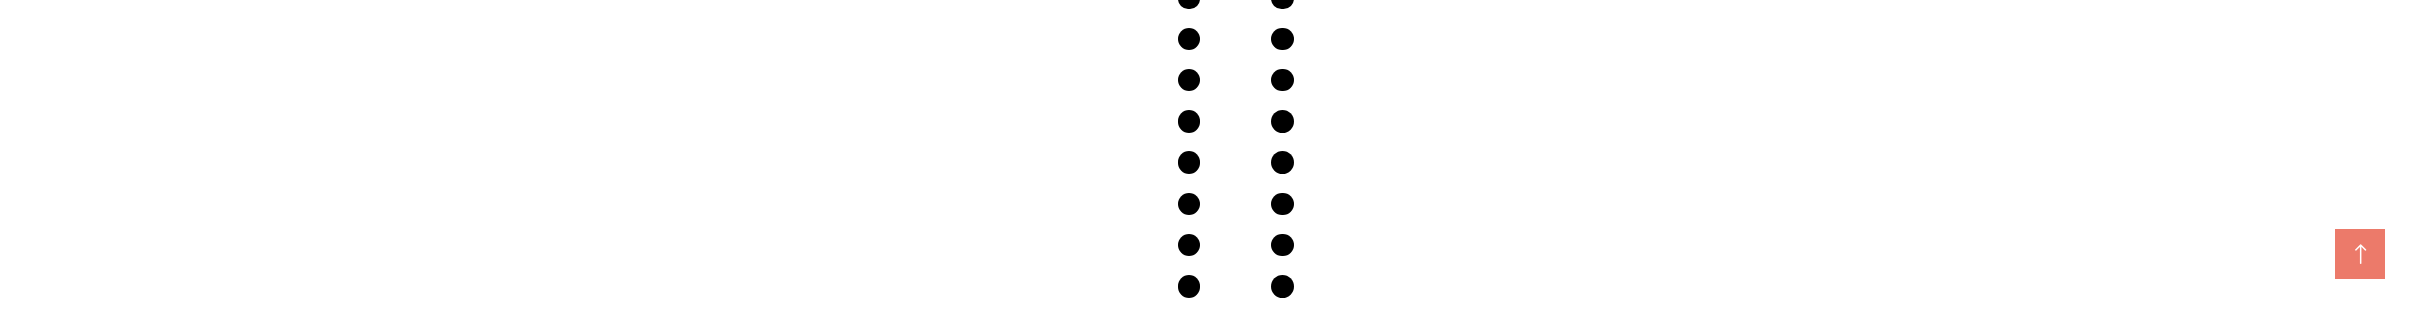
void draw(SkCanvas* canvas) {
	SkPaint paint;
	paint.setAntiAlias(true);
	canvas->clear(0xffffffff);
	paint.setColor(0xff000000);
	canvas->drawRoundRect(SkRect::MakeXYWH(1178, -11, 22, 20), 11, 11, paint);
	canvas->drawCircle(1189, 39, 11, paint);
	canvas->drawCircle(1189, 80, 11, paint);
	canvas->drawRoundRect(SkRect::MakeXYWH(1178, 110, 22, 23), 11, 11, paint);
	canvas->drawRoundRect(SkRect::MakeXYWH(1178, 151, 22, 23), 11, 11, paint);
	canvas->drawCircle(1189, 204, 11, paint);
	canvas->drawCircle(1189, 245, 11, paint);
	canvas->drawRoundRect(SkRect::MakeXYWH(1178, 275, 22, 23), 11, 11, paint);
	canvas->drawRoundRect(SkRect::MakeXYWH(1271, -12, 23, 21), 11.5, 11.5, paint);
	canvas->drawRoundRect(SkRect::MakeXYWH(1271, 28, 23, 22), 11, 11, paint);
	canvas->drawRoundRect(SkRect::MakeXYWH(1271, 69, 23, 22), 11, 11, paint);
	canvas->drawCircle(1282.5, 121.5, 11.5, paint);
	canvas->drawCircle(1282.5, 162.5, 11.5, paint);
	canvas->drawRoundRect(SkRect::MakeXYWH(1271, 193, 23, 22), 11, 11, paint);
	canvas->drawRoundRect(SkRect::MakeXYWH(1271, 234, 23, 22), 11, 11, paint);
	canvas->drawCircle(1282.5, 286.5, 11.5, paint);
	paint.setColor(0xffec7a6a);
	canvas->drawRect(SkRect::MakeXYWH(2335, 229, 50, 50), paint);
	canvas->drawImageRect(SkImages::DeferredFromEncodedData(SkData::MakeFromFileName("img1.png")), SkRect::MakeXYWH(2355, 244, 12, 20), SkSamplingOptions());
}
